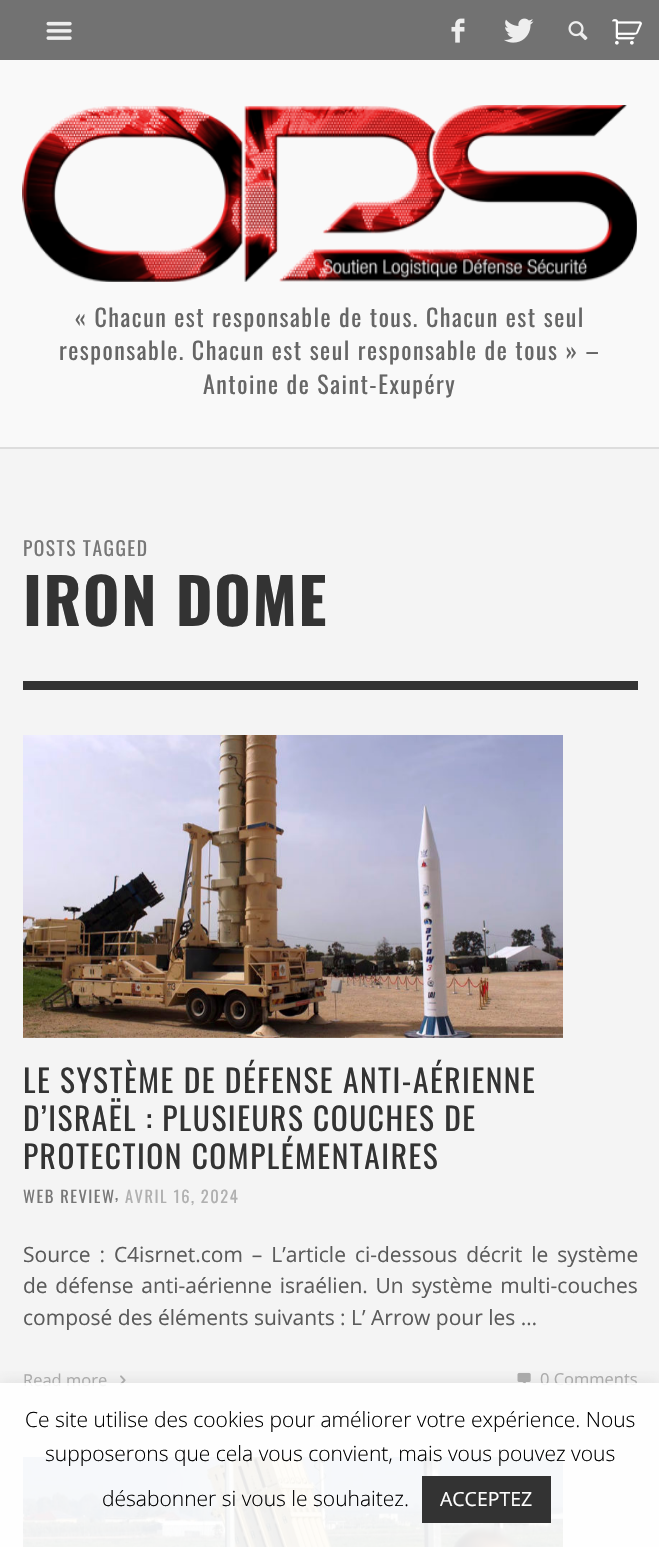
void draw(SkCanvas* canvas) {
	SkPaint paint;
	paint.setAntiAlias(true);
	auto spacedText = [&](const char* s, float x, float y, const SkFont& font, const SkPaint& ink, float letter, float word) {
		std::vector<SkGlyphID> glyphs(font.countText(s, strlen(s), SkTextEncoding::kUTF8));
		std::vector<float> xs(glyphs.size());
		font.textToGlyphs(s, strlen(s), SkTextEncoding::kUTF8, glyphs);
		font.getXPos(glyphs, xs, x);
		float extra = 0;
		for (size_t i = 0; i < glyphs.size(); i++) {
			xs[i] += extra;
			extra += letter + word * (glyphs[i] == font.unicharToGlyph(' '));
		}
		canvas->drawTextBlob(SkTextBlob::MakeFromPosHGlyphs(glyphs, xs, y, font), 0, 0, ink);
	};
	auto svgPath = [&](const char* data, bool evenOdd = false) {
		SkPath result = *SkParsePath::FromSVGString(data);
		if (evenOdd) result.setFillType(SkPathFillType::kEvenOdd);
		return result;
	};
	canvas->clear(0xfff4f4f4);
	paint.setColor(0xff727272);
	canvas->drawRect(SkRect::MakeXYWH(0, 0, 659, 60), paint);
	canvas->drawImageRect(SkImages::DeferredFromEncodedData(SkData::MakeFromFileName("img1.png")), SkRect::MakeXYWH(46, 21, 26, 19), SkSamplingOptions());
	canvas->drawImageRect(SkImages::DeferredFromEncodedData(SkData::MakeFromFileName("img2.png")), SkRect::MakeXYWH(451, 18, 14, 25), SkSamplingOptions());
	canvas->drawImageRect(SkImages::DeferredFromEncodedData(SkData::MakeFromFileName("img3.png")), SkRect::MakeXYWH(504, 18, 30, 25), SkSamplingOptions());
	canvas->drawImageRect(SkImages::DeferredFromEncodedData(SkData::MakeFromFileName("img4.png")), SkRect::MakeXYWH(568, 21, 20, 20), SkSamplingOptions());
	canvas->drawImageRect(SkImages::DeferredFromEncodedData(SkData::MakeFromFileName("img5.png")), SkRect::MakeXYWH(612, 19, 30, 26), SkSamplingOptions());
	paint.setColor(0xfff9f9f9);
	canvas->drawRect(SkRect::MakeXYWH(0, 60, 659, 387), paint);
	paint.setColor(0xffdddddd);
	canvas->drawRect(SkRect::MakeXYWH(0, 447, 659, 2), paint);
	canvas->drawImageRect(SkImages::DeferredFromEncodedData(SkData::MakeFromFileName("img6.png")), SkRect::MakeXYWH(22, 105, 615, 177), SkSamplingOptions());
	SkFont f1(fontMgr->matchFamilyStyle("Oswald", SkFontStyle::Normal()), 24);
	f1.setSubpixel(true);
	paint.setColor(0xff666666);
	spacedText("« Chacun est responsable de tous. Chacun est seul", 75, 327, f1, paint, 1.5, 0);
	spacedText("responsable. Chacun est seul responsable de tous » –", 59, 360, f1, paint, 1.5, 0);
	spacedText("Antoine de Saint-Exupéry", 203, 394, f1, paint, 1.5, 0);
	SkFont f2(fontMgr->matchFamilyStyle("Oswald", SkFontStyle::Normal()), 19.5);
	f2.setSubpixel(true);
	paint.setColor(0xff777777);
	spacedText("POSTS TAGGED", 23, 556, f2, paint, 1.5, 0);
	SkFont f3(fontMgr->matchFamilyStyle("Oswald", SkFontStyle::Bold()), 63);
	f3.setSubpixel(true);
	paint.setColor(0xff333333);
	spacedText("IRON DOME", 23, 626, f3, paint, 1.5, 0);
	canvas->drawRect(SkRect::MakeXYWH(23, 681, 615, 9), paint);
	paint.setStroke(true);
	paint.setStrokeWidth(1.5);
	paint.setColor(0xffdddddd);
	paint.setPathEffect(SkDashPathEffect::Make({{1.5f, 1.5f}}, 0));
	canvas->drawPath(svgPath("M22.5 1426H637.5"), paint);
	paint.setPathEffect(nullptr);
	canvas->drawImageRect(SkImages::DeferredFromEncodedData(SkData::MakeFromFileName("img7.png")), SkRect::MakeXYWH(23, 735, 540, 303), SkSamplingOptions());
	SkFont f4(fontMgr->matchFamilyStyle("Oswald", SkFontStyle::Normal()), 31.5);
	f4.setSubpixel(true);
	paint.setStroke(false);
	paint.setColor(0xff333333);
	spacedText("LE SYSTÈME DE DÉFENSE ANTI-AÉRIENNE", 23, 1093, f4, paint, 1.5, 0);
	spacedText("D’ISRAËL : PLUSIEURS COUCHES DE", 23, 1131, f4, paint, 1.5, 0);
	spacedText("PROTECTION COMPLÉMENTAIRES", 23, 1169, f4, paint, 1.5, 0);
	SkFont f5(fontMgr->matchFamilyStyle("Oswald", SkFontStyle::Normal()), 16.5);
	f5.setSubpixel(true);
	paint.setColor(0xff777777);
	spacedText("WEB REVIEW", 23, 1203, f5, paint, 1.5, 0);
	spacedText(",", 115, 1200, f5, paint, 1.5, 0);
	paint.setColor(0xffb0b0b0);
	spacedText("AVRIL 16, 2024", 125, 1203, f5, paint, 1.5, 0);
	SkFont f6(fontMgr->matchFamilyStyle("Open Sans", SkFontStyle::Normal()), 21);
	f6.setSubpixel(true);
	paint.setColor(0xff5b5b5b);
	spacedText("Source : C4isrnet.com – L’article ci-dessous décrit le système", 23, 1262, f6, paint, 0, 3.5);
	spacedText("de défense anti-aérienne israélien. Un système multi-couches", 23, 1293, f6, paint, 0, 2.25);
	canvas->drawString("composé des éléments suivants : L’ Arrow pour les …", 23, 1325, f6, paint);
	SkFont f7(fontMgr->matchFamilyStyle("Open Sans", SkFontStyle::Normal()), 16.5);
	f7.setSubpixel(true);
	paint.setColor(0xffaaaaaa);
	canvas->drawString("Read more", 23, 1386, f7, paint);
	canvas->drawImageRect(SkImages::DeferredFromEncodedData(SkData::MakeFromFileName("img8.png")), SkRect::MakeXYWH(120, 1375, 6, 10), SkSamplingOptions());
	canvas->drawImageRect(SkImages::DeferredFromEncodedData(SkData::MakeFromFileName("img9.png")), SkRect::MakeXYWH(517, 1372, 14, 13), SkSamplingOptions());
	canvas->drawString("0 Comments", 540, 1385, f7, paint);
	canvas->drawImageRect(SkImages::DeferredFromEncodedData(SkData::MakeFromFileName("img10.png")), SkRect::MakeXYWH(23, 1457, 540, 90), SkSamplingOptions());
	canvas->save();
	canvas->clipRect(SkRect::MakeXYWH(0, 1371, 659, 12));
	paint.setColor(0x4dacabab);
	paint.setMaskFilter(SkMaskFilter::MakeBlur(kNormal_SkBlurStyle, 7.5));
	canvas->drawRect(SkRect::MakeXYWH(0, 1382, 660, 165), paint);
	paint.setMaskFilter(nullptr);
	canvas->restore();
	paint.setColor(0xe6ffffff);
	canvas->drawRect(SkRect::MakeXYWH(0, 1383, 659, 164), paint);
	SkFont f8(fontMgr->matchFamilyStyle("Open Sans", SkFontStyle(300, SkFontStyle::kNormal_Width, SkFontStyle::kUpright_Slant)), 21);
	f8.setSubpixel(true);
	paint.setColor(0xff000000);
	canvas->drawString("Ce site utilise des cookies pour améliorer votre expérience. Nous", 25, 1427, f8, paint);
	canvas->drawString("supposerons que cela vous convient, mais vous pouvez vous", 45, 1461, f8, paint);
	canvas->drawString("désabonner si vous le souhaitez.", 102, 1506, f8, paint);
	paint.setColor(0xff333333);
	canvas->drawRect(SkRect::MakeXYWH(422, 1476, 129, 47), paint);
	SkFont f9(fontMgr->matchFamilyStyle("Open Sans", SkFontStyle::Normal()), 19.5);
	f9.setSubpixel(true);
	paint.setColor(0xffffffff);
	canvas->drawString("ACCEPTEZ", 440, 1506, f9, paint);
}
